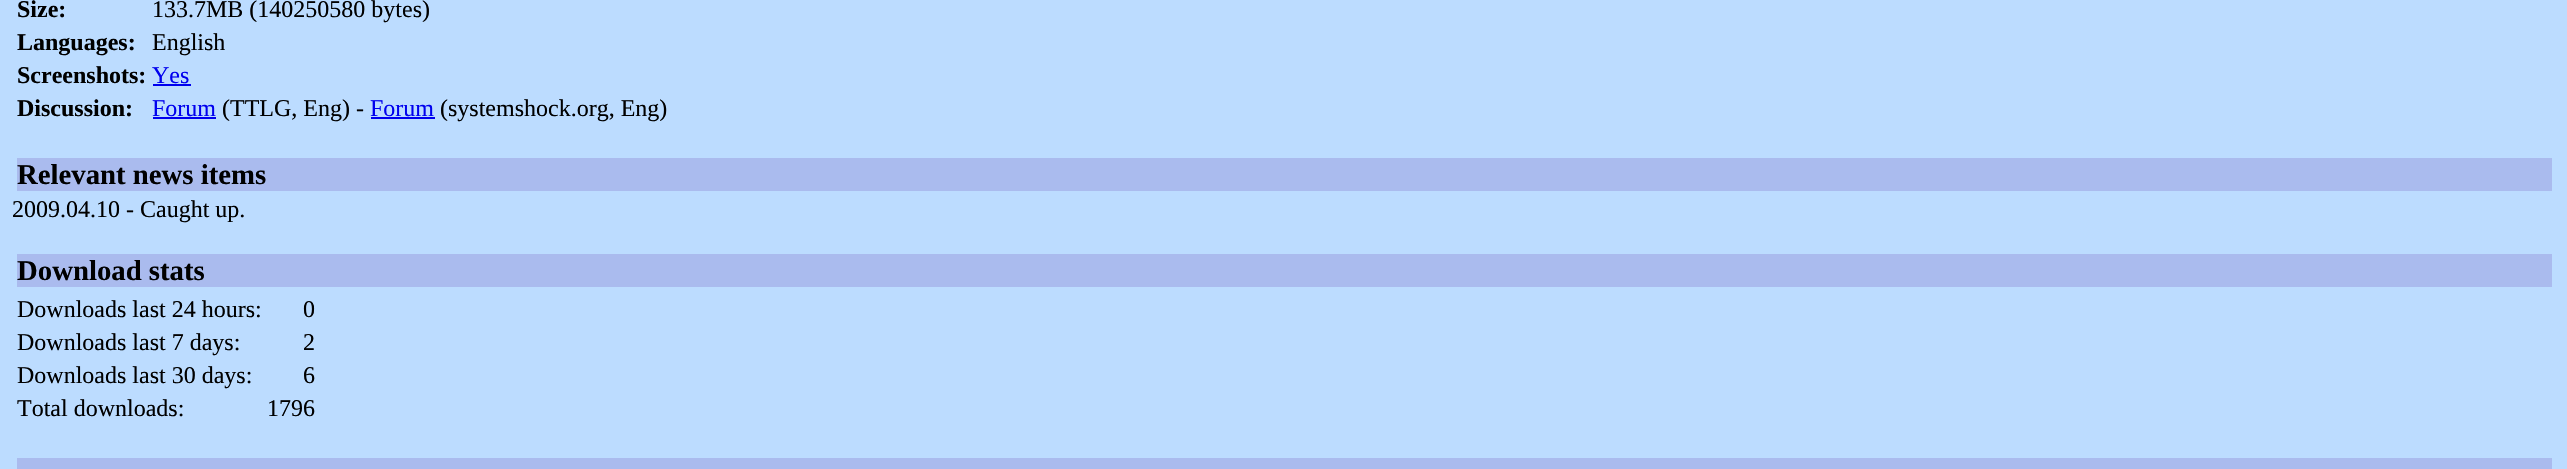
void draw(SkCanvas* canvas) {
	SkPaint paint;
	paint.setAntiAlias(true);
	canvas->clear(0xffbcdcff);
	SkFont f1(fontMgr->matchFamilyStyle("Liberation Serif", SkFontStyle::Bold()), 24);
	f1.setSubpixel(true);
	paint.setColor(0xff000000);
	canvas->drawString("Size:", 17, 17, f1, paint);
	SkFont f2(fontMgr->matchFamilyStyle("Liberation Serif", SkFontStyle::Normal()), 24);
	f2.setSubpixel(true);
	canvas->drawString("133.7MB (140250580 bytes)", 152, 17, f2, paint);
	canvas->drawString("Languages:", 17, 50, f1, paint);
	canvas->drawString("English", 152, 50, f2, paint);
	canvas->drawString("Screenshots:", 17, 83, f1, paint);
	paint.setColor(0xff0000ee);
	canvas->drawString("Yes", 152, 83, f2, paint);
	canvas->drawRect(SkRect::MakeXYWH(153, 84, 38, 2), paint);
	paint.setColor(0xff000000);
	canvas->drawString("Discussion:", 17, 116, f1, paint);
	paint.setColor(0xff0000ee);
	canvas->drawString("Forum", 152, 116, f2, paint);
	canvas->drawRect(SkRect::MakeXYWH(153, 117, 63, 2), paint);
	paint.setColor(0xff000000);
	canvas->drawString("(TTLG, Eng) -", 222, 116, f2, paint);
	paint.setColor(0xff0000ee);
	canvas->drawString("Forum", 370, 116, f2, paint);
	canvas->drawRect(SkRect::MakeXYWH(371, 117, 64, 2), paint);
	paint.setColor(0xff000000);
	canvas->drawString("(systemshock.org, Eng)", 440, 116, f2, paint);
	paint.setColor(0xffaabbee);
	canvas->drawRect(SkRect::MakeXYWH(17, 158, 2535, 33), paint);
	SkFont f3(fontMgr->matchFamilyStyle("Liberation Serif", SkFontStyle::Bold()), 28.75);
	f3.setSubpixel(true);
	paint.setColor(0xff000000);
	canvas->drawString("Relevant news items", 17, 184, f3, paint);
	canvas->drawString("2009.04.10 - Caught up.", 12, 217, f2, paint);
	paint.setColor(0xffaabbee);
	canvas->drawRect(SkRect::MakeXYWH(17, 254, 2535, 33), paint);
	paint.setColor(0xff000000);
	canvas->drawString("Download stats", 17, 280, f3, paint);
	canvas->drawString("Downloads last 24 hours:", 17, 317, f2, paint);
	canvas->drawString("0", 303, 317, f2, paint);
	canvas->drawString("Downloads last 7 days:", 17, 350, f2, paint);
	canvas->drawString("2", 303, 350, f2, paint);
	canvas->drawString("Downloads last 30 days:", 17, 383, f2, paint);
	canvas->drawString("6", 303, 383, f2, paint);
	canvas->drawString("Total downloads:", 17, 416, f2, paint);
	canvas->drawString("1796", 267, 416, f2, paint);
	paint.setColor(0xffaabbee);
	canvas->drawRect(SkRect::MakeXYWH(17, 458, 2535, 11), paint);
}
